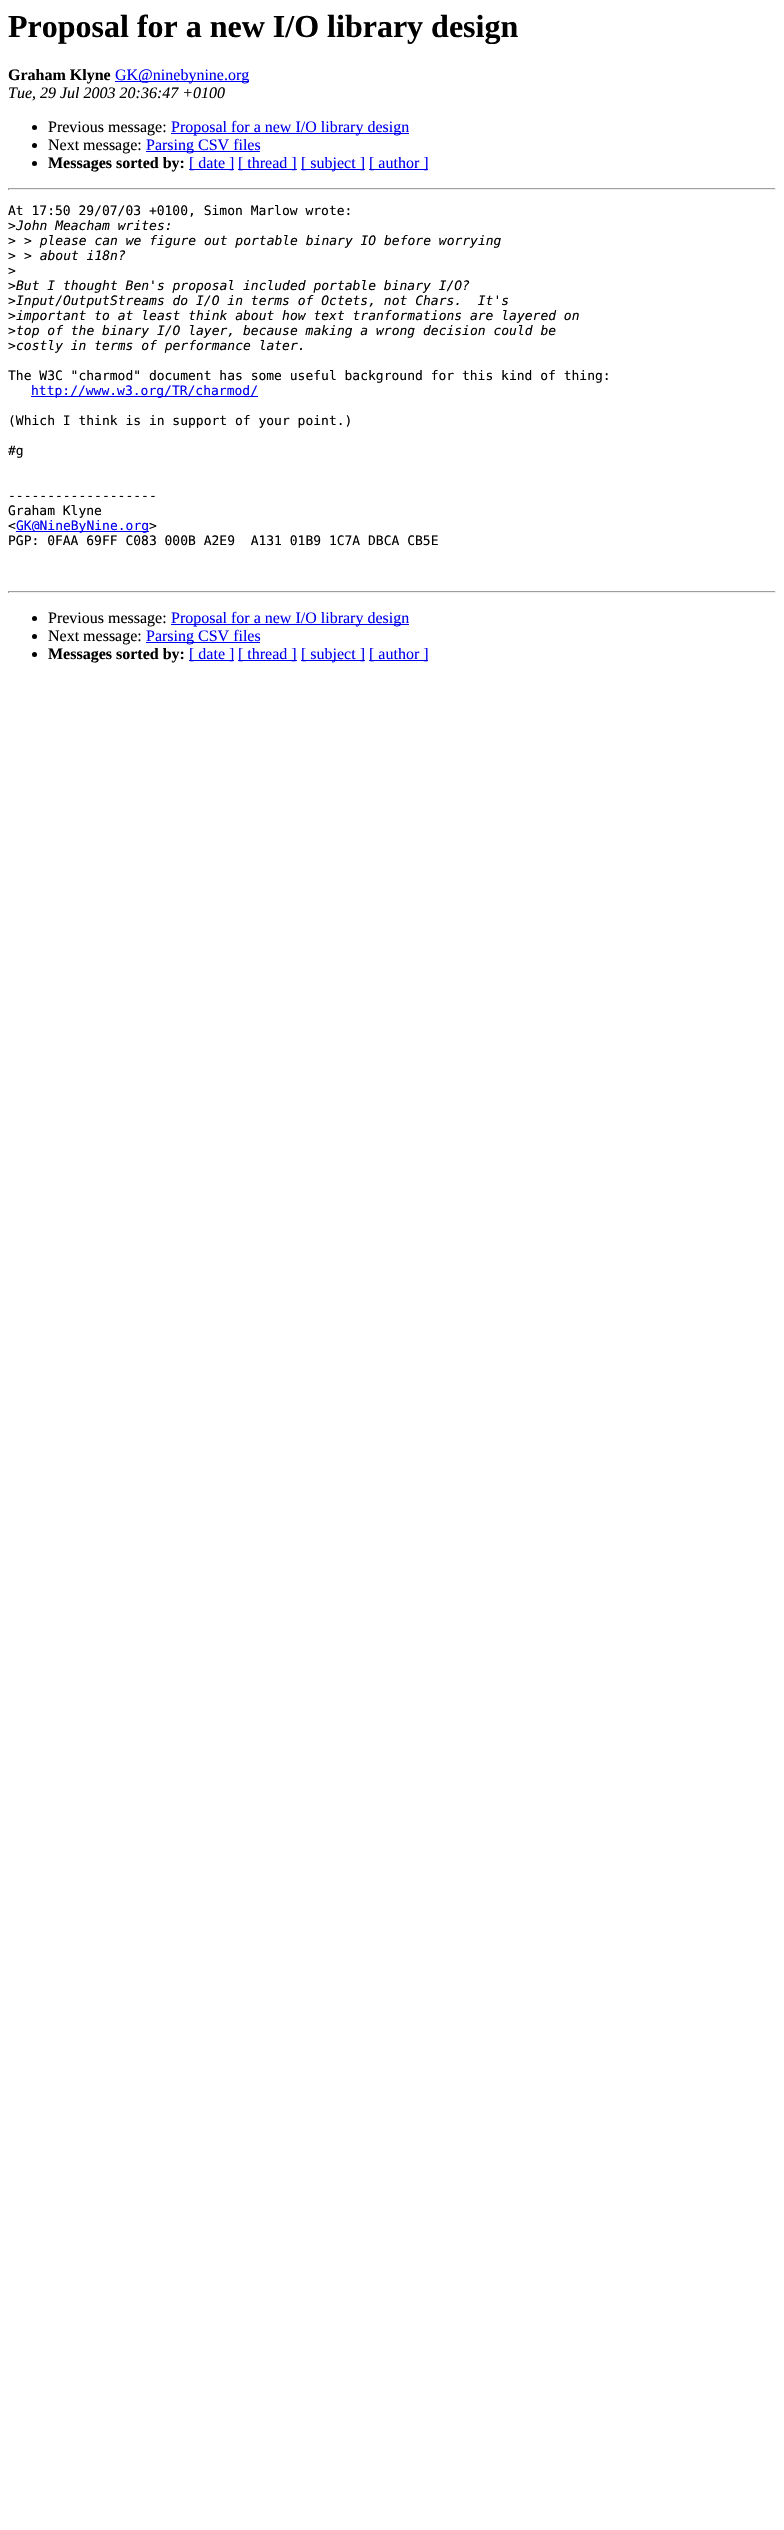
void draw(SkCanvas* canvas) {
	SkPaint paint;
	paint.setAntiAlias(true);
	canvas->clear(0xffffffff);
	SkFont f1(fontMgr->matchFamilyStyle("Liberation Serif", SkFontStyle::Bold()), 32);
	f1.setSubpixel(true);
	paint.setColor(0xff000000);
	canvas->drawString("Proposal for a new I/O library design", 8, 37, f1, paint);
	SkFont f2(fontMgr->matchFamilyStyle("Liberation Serif", SkFontStyle::Bold()), 16);
	f2.setSubpixel(true);
	canvas->drawString("Graham Klyne", 8, 80, f2, paint);
	paint.setColor(0xff0000ee);
	canvas->drawRect(SkRect::MakeXYWH(115, 81, 134, 1), paint);
	SkFont f3(fontMgr->matchFamilyStyle("Liberation Serif", SkFontStyle::Normal()), 16);
	f3.setSubpixel(true);
	canvas->drawString("GK@ninebynine.org", 115, 80, f3, paint);
	SkFont f4(fontMgr->matchFamilyStyle("Liberation Serif", SkFontStyle::Italic()), 16);
	f4.setSubpixel(true);
	paint.setColor(0xff000000);
	canvas->drawString("Tue, 29 Jul 2003 20:36:47 +0100", 8, 98, f4, paint);
	canvas->drawCircle(34.5, 127.5, 2.5, paint);
	canvas->drawString("Previous message:", 48, 132, f3, paint);
	paint.setColor(0xff0000ee);
	canvas->drawRect(SkRect::MakeXYWH(171, 133, 238, 1), paint);
	canvas->drawString("Proposal for a new I/O library design", 171, 132, f3, paint);
	paint.setColor(0xff000000);
	canvas->drawCircle(34.5, 145.5, 2.5, paint);
	canvas->drawString("Next message:", 48, 150, f3, paint);
	paint.setColor(0xff0000ee);
	canvas->drawRect(SkRect::MakeXYWH(146, 151, 114, 1), paint);
	canvas->drawString("Parsing CSV files", 146, 150, f3, paint);
	paint.setColor(0xff000000);
	canvas->drawCircle(34.5, 163.5, 2.5, paint);
	canvas->drawString("Messages sorted by:", 48, 168, f2, paint);
	paint.setColor(0xff0000ee);
	canvas->drawRect(SkRect::MakeXYWH(189, 169, 45, 1), paint);
	canvas->drawString("[ date ]", 189, 168, f3, paint);
	canvas->drawRect(SkRect::MakeXYWH(238, 169, 59, 1), paint);
	canvas->drawString("[ thread ]", 238, 168, f3, paint);
	canvas->drawRect(SkRect::MakeXYWH(301, 169, 64, 1), paint);
	canvas->drawString("[ subject ]", 301, 168, f3, paint);
	canvas->drawRect(SkRect::MakeXYWH(369, 169, 59, 1), paint);
	canvas->drawString("[ author ]", 369, 168, f3, paint);
	paint.setColor(0xff9f9f9f);
	canvas->drawRect(SkRect::MakeXYWH(8, 188, 768, 1), paint);
	paint.setColor(0xffeeeeee);
	canvas->drawRect(SkRect::MakeXYWH(775, 188, 1, 2), paint);
	canvas->drawRect(SkRect::MakeXYWH(8, 189, 768, 1), paint);
	paint.setColor(0xff9f9f9f);
	canvas->drawRect(SkRect::MakeXYWH(8, 188, 1, 2), paint);
	SkFont f5(fontMgr->matchFamilyStyle("DejaVu Sans Mono", SkFontStyle::Normal()), 13);
	f5.setSubpixel(true);
	paint.setColor(0xff000000);
	canvas->drawString("At 17:50 29/07/03 +0100, Simon Marlow wrote:", 8, 215, f5, paint);
	canvas->drawString(">", 8, 230, f5, paint);
	SkFont f6(fontMgr->matchFamilyStyle("DejaVu Sans Mono", SkFontStyle::Italic()), 13);
	f6.setSubpixel(true);
	canvas->drawString("John Meacham writes:", 16, 230, f6, paint);
	canvas->drawString(">", 8, 245, f5, paint);
	canvas->drawString("> please can we figure out portable binary IO before worrying", 24, 245, f6, paint);
	canvas->drawString(">", 8, 260, f5, paint);
	canvas->drawString("> about i18n?", 24, 260, f6, paint);
	canvas->drawString(">", 8, 275, f5, paint);
	canvas->drawString(">", 8, 290, f5, paint);
	canvas->drawString("But I thought Ben's proposal included portable binary I/O?", 16, 290, f6, paint);
	canvas->drawString(">", 8, 305, f5, paint);
	canvas->drawString("Input/OutputStreams do I/O in terms of Octets, not Chars.  It's", 16, 305, f6, paint);
	canvas->drawString(">", 8, 320, f5, paint);
	canvas->drawString("important to at least think about how text tranformations are layered on", 16, 320, f6, paint);
	canvas->drawString(">", 8, 335, f5, paint);
	canvas->drawString("top of the binary I/O layer, because making a wrong decision could be", 16, 335, f6, paint);
	canvas->drawString(">", 8, 350, f5, paint);
	canvas->drawString("costly in terms of performance later.", 16, 350, f6, paint);
	canvas->drawString("The W3C \"charmod\" document has some useful background for this kind of thing:", 8, 380, f5, paint);
	paint.setColor(0xff0000ee);
	canvas->drawRect(SkRect::MakeXYWH(31, 396, 227, 1), paint);
	canvas->drawString("http://www.w3.org/TR/charmod/", 31, 395, f5, paint);
	paint.setColor(0xff000000);
	canvas->drawString("(Which I think is in support of your point.)", 8, 425, f5, paint);
	canvas->drawString("#g", 8, 455, f5, paint);
	canvas->drawString("-------------------", 8, 500, f5, paint);
	canvas->drawString("Graham Klyne", 8, 515, f5, paint);
	canvas->drawString("<", 8, 530, f5, paint);
	paint.setColor(0xff0000ee);
	canvas->drawRect(SkRect::MakeXYWH(16, 531, 133, 1), paint);
	canvas->drawString("GK@NineByNine.org", 16, 530, f5, paint);
	paint.setColor(0xff000000);
	canvas->drawString(">", 149, 530, f5, paint);
	canvas->drawString("PGP: 0FAA 69FF C083 000B A2E9  A131 01B9 1C7A DBCA CB5E", 8, 545, f5, paint);
	paint.setColor(0xff9f9f9f);
	canvas->drawRect(SkRect::MakeXYWH(8, 591, 768, 1), paint);
	paint.setColor(0xffeeeeee);
	canvas->drawRect(SkRect::MakeXYWH(775, 591, 1, 2), paint);
	canvas->drawRect(SkRect::MakeXYWH(8, 592, 768, 1), paint);
	paint.setColor(0xff9f9f9f);
	canvas->drawRect(SkRect::MakeXYWH(8, 591, 1, 2), paint);
	paint.setColor(0xff000000);
	canvas->drawCircle(34.5, 618.5, 2.5, paint);
	canvas->drawString("Previous message:", 48, 623, f3, paint);
	paint.setColor(0xff0000ee);
	canvas->drawRect(SkRect::MakeXYWH(171, 624, 238, 1), paint);
	canvas->drawString("Proposal for a new I/O library design", 171, 623, f3, paint);
	paint.setColor(0xff000000);
	canvas->drawCircle(34.5, 636.5, 2.5, paint);
	canvas->drawString("Next message:", 48, 641, f3, paint);
	paint.setColor(0xff0000ee);
	canvas->drawRect(SkRect::MakeXYWH(146, 642, 114, 1), paint);
	canvas->drawString("Parsing CSV files", 146, 641, f3, paint);
	paint.setColor(0xff000000);
	canvas->drawCircle(34.5, 654.5, 2.5, paint);
	canvas->drawString("Messages sorted by:", 48, 659, f2, paint);
	paint.setColor(0xff0000ee);
	canvas->drawRect(SkRect::MakeXYWH(189, 660, 45, 1), paint);
	canvas->drawString("[ date ]", 189, 659, f3, paint);
	canvas->drawRect(SkRect::MakeXYWH(238, 660, 59, 1), paint);
	canvas->drawString("[ thread ]", 238, 659, f3, paint);
	canvas->drawRect(SkRect::MakeXYWH(301, 660, 64, 1), paint);
	canvas->drawString("[ subject ]", 301, 659, f3, paint);
	canvas->drawRect(SkRect::MakeXYWH(369, 660, 59, 1), paint);
	canvas->drawString("[ author ]", 369, 659, f3, paint);
}
